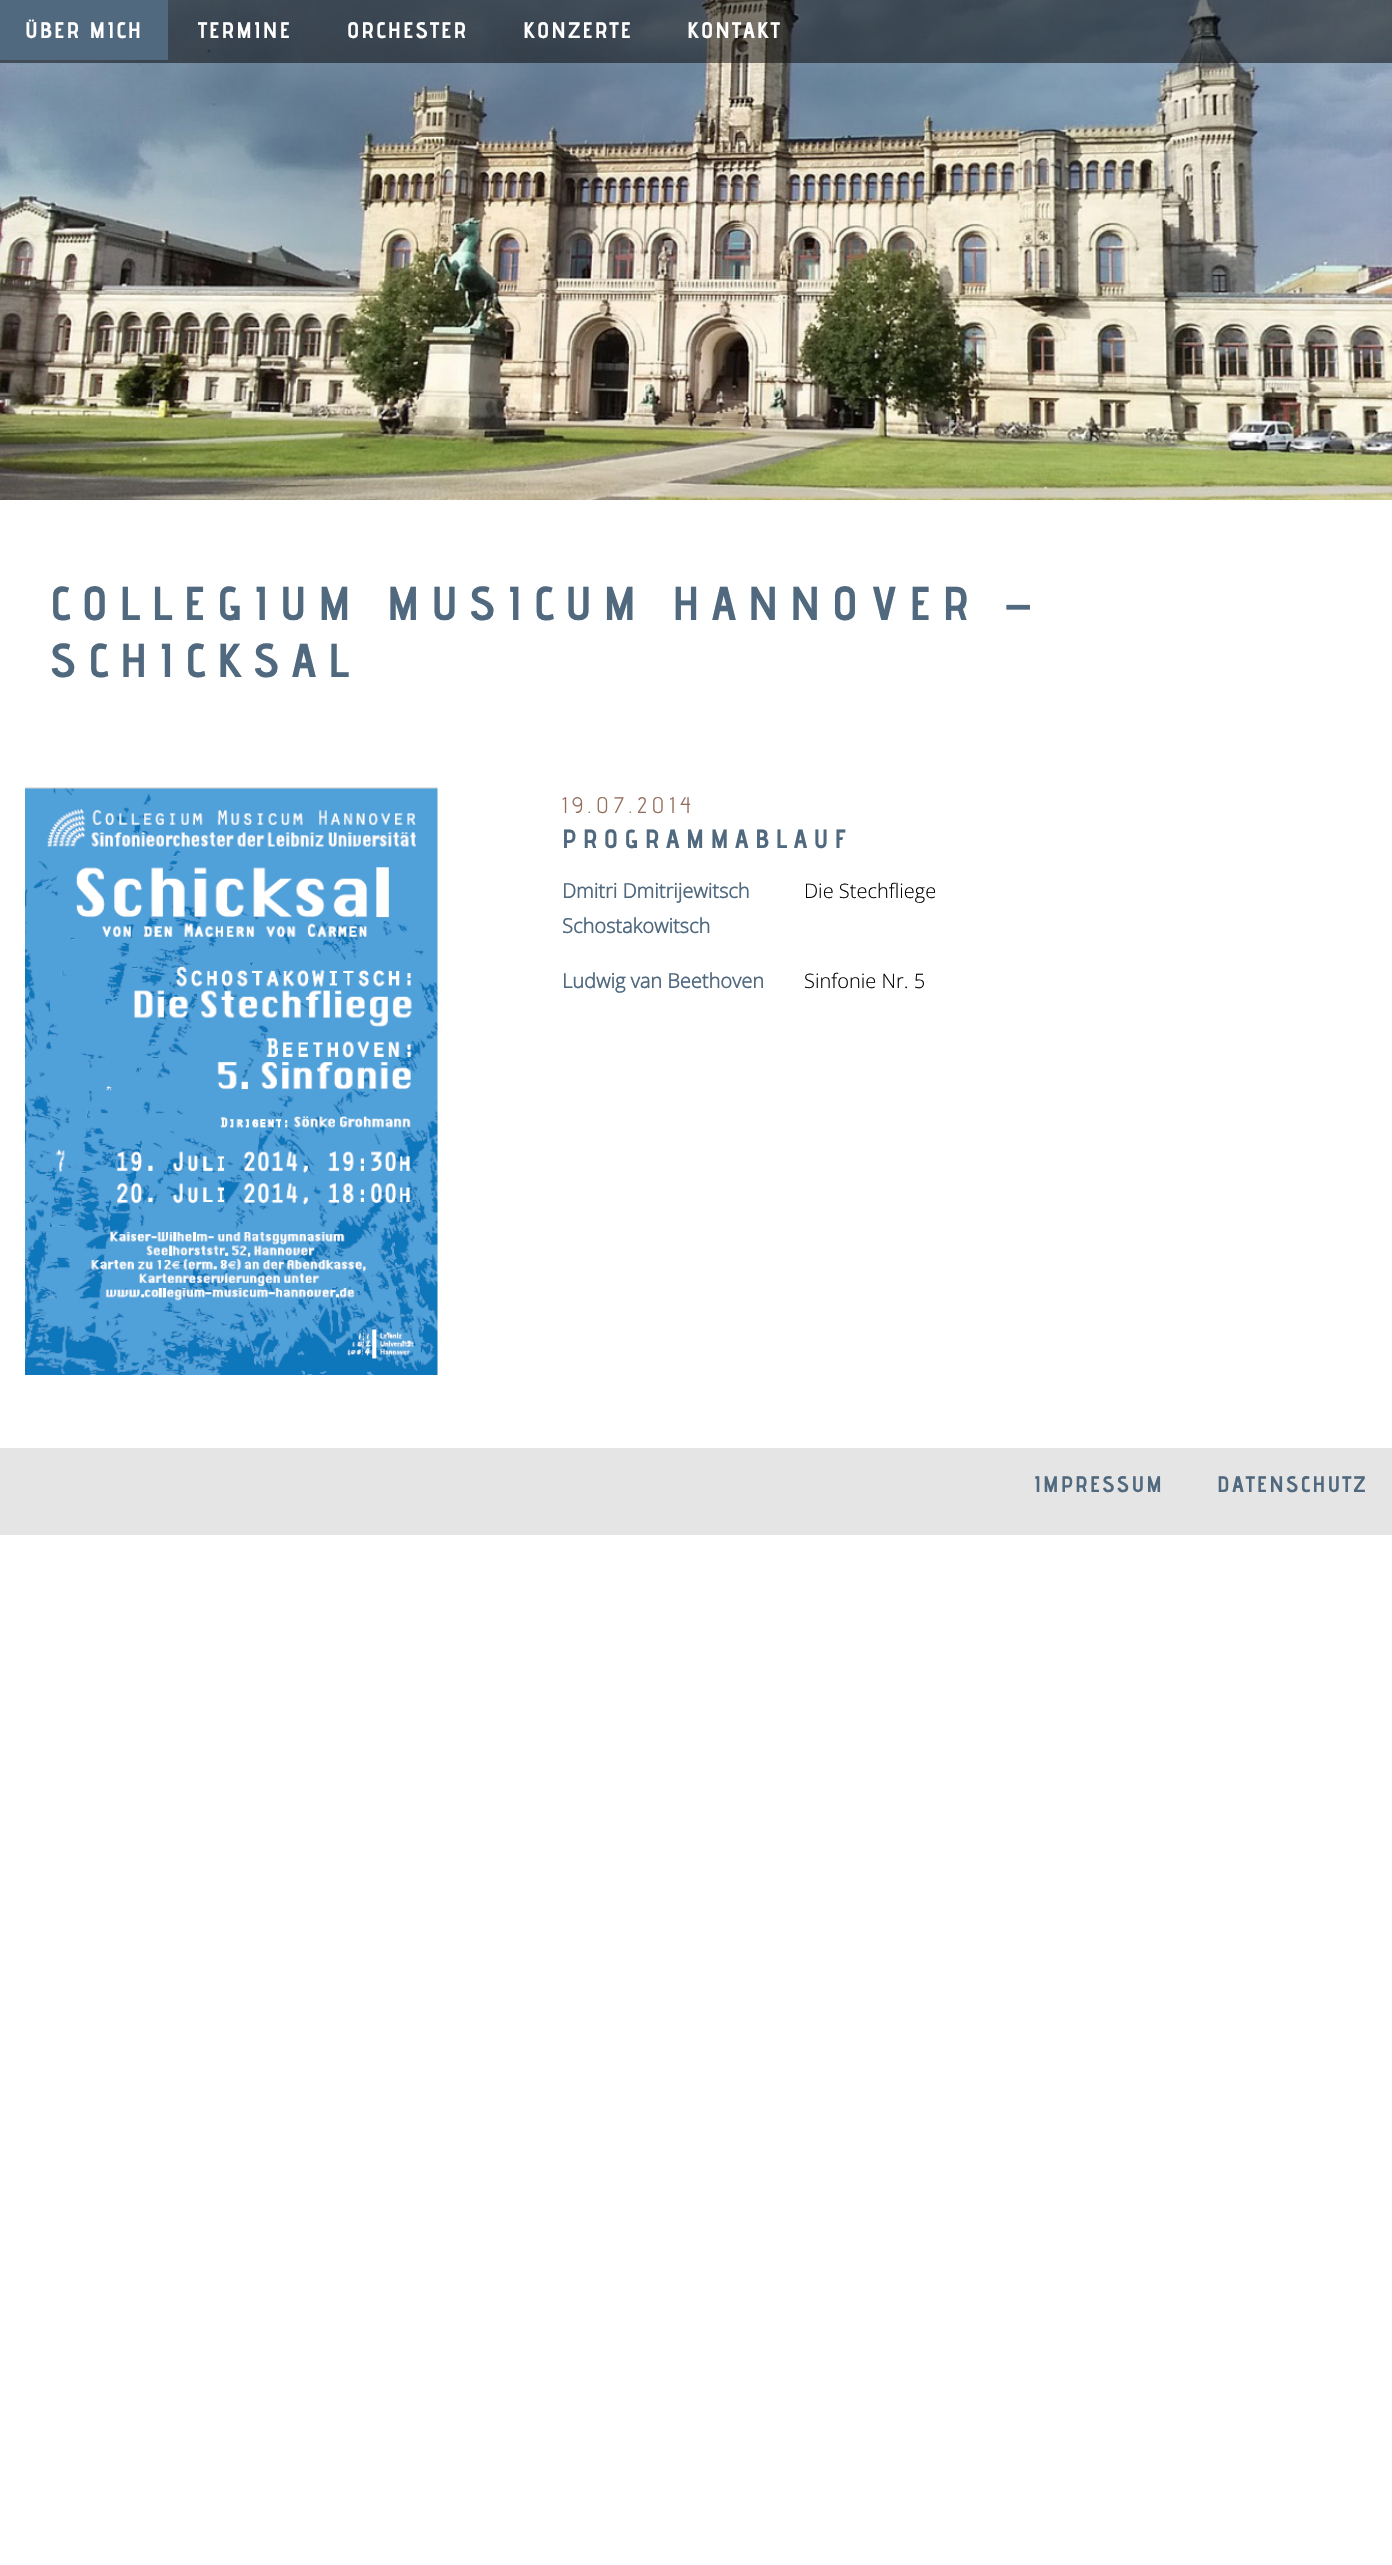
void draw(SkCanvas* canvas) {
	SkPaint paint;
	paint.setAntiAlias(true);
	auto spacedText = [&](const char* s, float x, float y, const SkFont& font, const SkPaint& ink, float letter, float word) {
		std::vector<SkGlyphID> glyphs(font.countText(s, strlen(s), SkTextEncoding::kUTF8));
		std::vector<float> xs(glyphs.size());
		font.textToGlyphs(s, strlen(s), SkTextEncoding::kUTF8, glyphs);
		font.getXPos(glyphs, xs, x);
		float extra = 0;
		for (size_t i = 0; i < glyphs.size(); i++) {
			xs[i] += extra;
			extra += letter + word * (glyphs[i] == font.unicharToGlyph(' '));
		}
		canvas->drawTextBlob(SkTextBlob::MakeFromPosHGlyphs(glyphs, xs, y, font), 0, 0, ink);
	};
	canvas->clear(0xffffffff);
	canvas->drawImageRect(SkImages::DeferredFromEncodedData(SkData::MakeFromFileName("img1.png")), SkRect::MakeXYWH(0, 0, 1392, 500), SkSamplingOptions());
	paint.setColor(0x80000000);
	canvas->drawRect(SkRect::MakeXYWH(0, 0, 1392, 63), paint);
	paint.setColor(0xff50697e);
	canvas->drawRect(SkRect::MakeXYWH(0, 0, 168, 60), paint);
	SkFont f1(fontMgr->matchFamilyStyle("Advent Pro", SkFontStyle::Bold()), 22.5);
	f1.setSubpixel(true);
	paint.setColor(0xffffffff);
	spacedText("ÜBER MICH", 25, 38, f1, paint, 2, 0);
	spacedText("TERMINE", 198, 38, f1, paint, 2, 0);
	spacedText("ORCHESTER", 347, 38, f1, paint, 2, 0);
	spacedText("KONZERTE", 523, 38, f1, paint, 2, 0);
	spacedText("KONTAKT", 687, 38, f1, paint, 2, 0);
	SkFont f2(fontMgr->matchFamilyStyle("Advent Pro", SkFontStyle::Bold()), 47.5);
	f2.setSubpixel(true);
	paint.setColor(0xff50697e);
	spacedText("COLLEGIUM MUSICUM HANNOVER", 50, 620, f2, paint, 11.3, 0);
	SkFont f3(fontMgr->matchFamilyStyle("Liberation Sans", SkFontStyle::Bold()), 47.5);
	f3.setSubpixel(true);
	spacedText("–", 1005, 620, f3, paint, 11.3, 0);
	spacedText("SCHICKSAL", 50, 677, f2, paint, 11.3, 0);
	canvas->drawImageRect(SkImages::DeferredFromEncodedData(SkData::MakeFromFileName("img2.png")), SkRect::MakeXYWH(25, 787, 413, 588), SkSamplingOptions());
	SkFont f4(fontMgr->matchFamilyStyle("Advent Pro", SkFontStyle::Normal()), 22.5);
	f4.setSubpixel(true);
	paint.setColor(0xff946e5d);
	spacedText("19.07.2014", 562, 813, f4, paint, 5.4, 0);
	SkFont f5(fontMgr->matchFamilyStyle("Advent Pro", SkFontStyle::Bold()), 26.25);
	f5.setSubpixel(true);
	paint.setColor(0xff50697e);
	spacedText("PROGRAMMABLAUF", 562, 848, f5, paint, 6.25, 0);
	SkFont f6(fontMgr->matchFamilyStyle("Open Sans", SkFontStyle::Bold()), 20);
	f6.setSubpixel(true);
	canvas->drawString("Dmitri Dmitrijewitsch", 562, 898, f6, paint);
	canvas->drawString("Schostakowitsch", 562, 933, f6, paint);
	SkFont f7(fontMgr->matchFamilyStyle("Open Sans", SkFontStyle(300, SkFontStyle::kNormal_Width, SkFontStyle::kUpright_Slant)), 20);
	f7.setSubpixel(true);
	paint.setColor(0xff020202);
	canvas->drawString("Die Stechfliege", 804, 898, f7, paint);
	paint.setColor(0xff50697e);
	canvas->drawString("Ludwig van Beethoven", 562, 988, f6, paint);
	paint.setColor(0xff020202);
	canvas->drawString("Sinfonie Nr. 5", 804, 988, f7, paint);
	paint.setColor(0xffe6e5e5);
	canvas->drawRect(SkRect::MakeXYWH(0, 1448, 1392, 87), paint);
	paint.setColor(0xff50697e);
	spacedText("IMPRESSUM", 1034, 1492, f1, paint, 2, 0);
	spacedText("DATENSCHUTZ", 1217, 1492, f1, paint, 2, 0);
}
